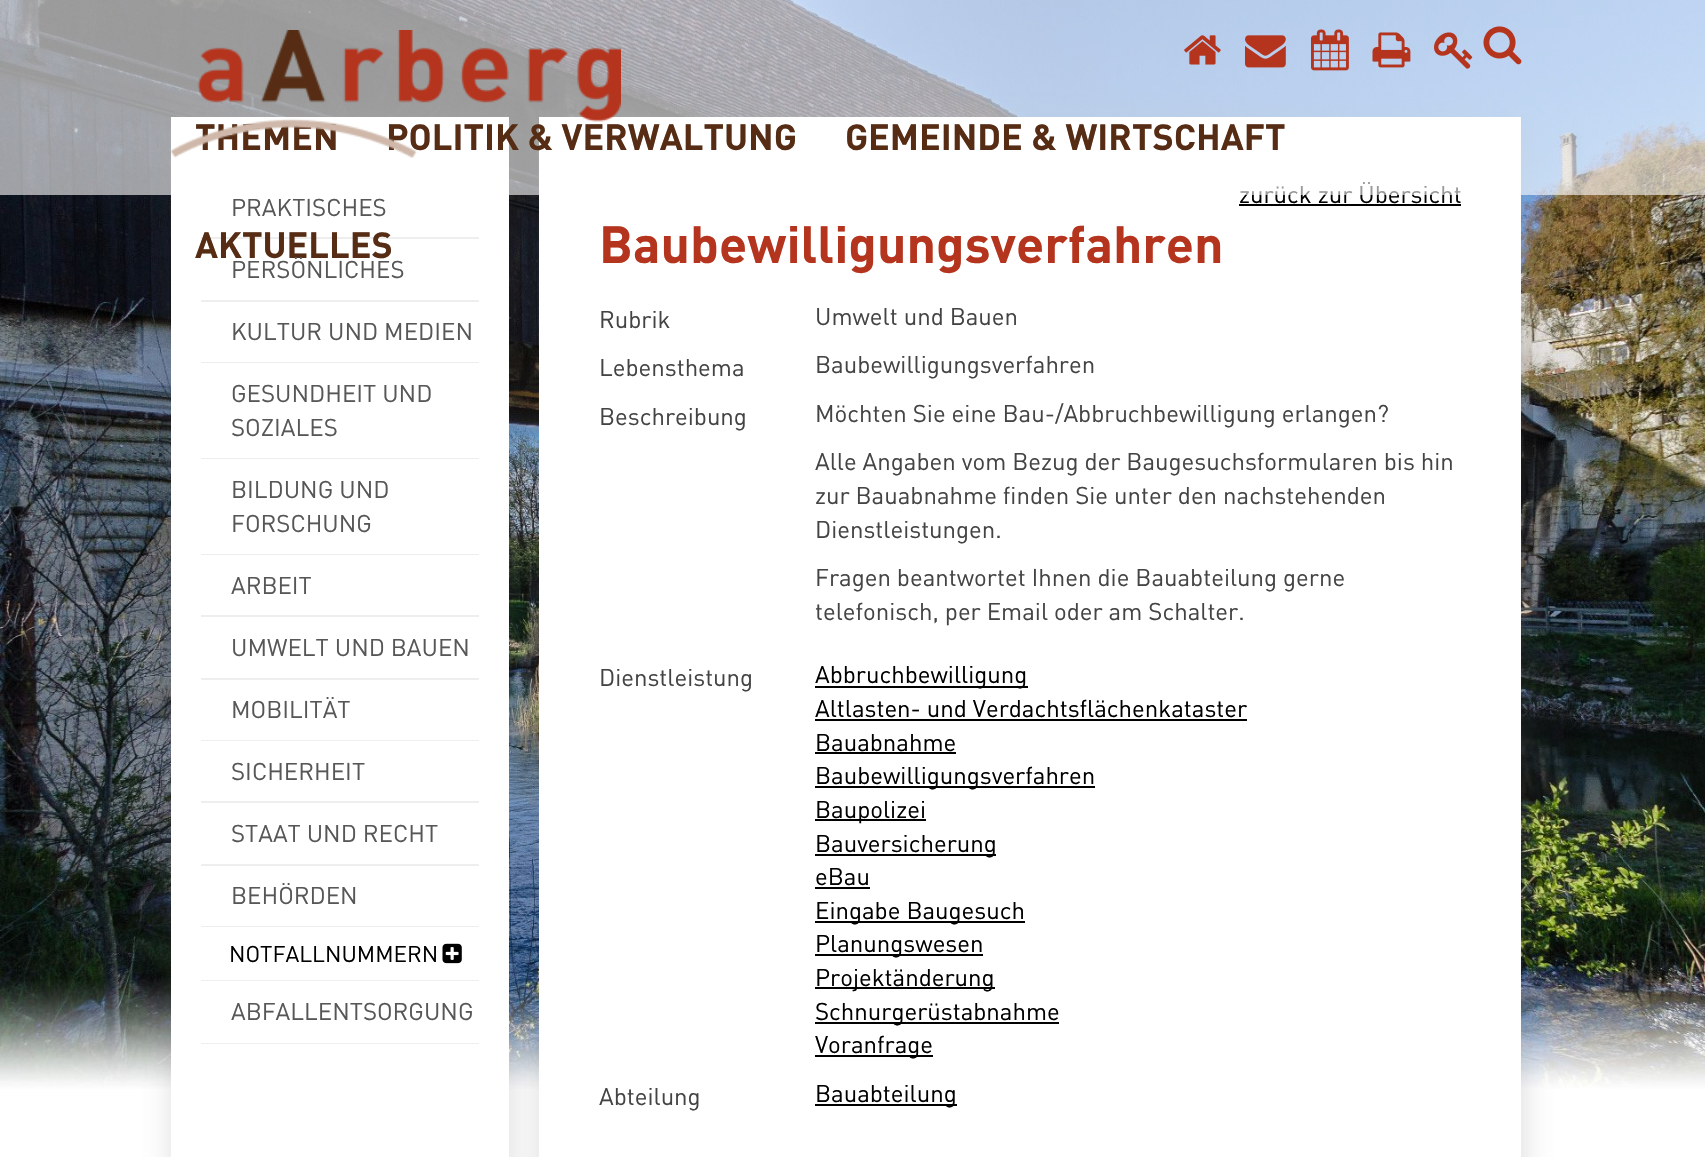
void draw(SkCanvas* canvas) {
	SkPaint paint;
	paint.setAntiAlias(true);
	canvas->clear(0xffffffff);
	canvas->drawImageRect(SkImages::DeferredFromEncodedData(SkData::MakeFromFileName("img8.png")), SkRect::MakeXYWH(0, 0, 1705, 1089), SkSamplingOptions());
	paint.setColor(0x3b696969);
	paint.setMaskFilter(SkMaskFilter::MakeBlur(kNormal_SkBlurStyle, 15));
	canvas->drawRect(SkRect::MakeXYWH(540, 123, 983, 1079), paint);
	paint.setMaskFilter(nullptr);
	paint.setColor(0xffffffff);
	canvas->drawRect(SkRect::MakeXYWH(539, 117, 982, 1040), paint);
	paint.setColor(0x3b696969);
	paint.setMaskFilter(SkMaskFilter::MakeBlur(kNormal_SkBlurStyle, 15));
	canvas->drawRect(SkRect::MakeXYWH(173, 123, 337, 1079), paint);
	paint.setMaskFilter(nullptr);
	paint.setColor(0xffffffff);
	canvas->drawRect(SkRect::MakeXYWH(171, 117, 338, 1040), paint);
	SkFont f1(fontMgr->matchFamilyStyle("DIN", SkFontStyle::Normal()), 24);
	f1.setSubpixel(true);
	paint.setColor(0xff000000);
	canvas->drawString("zurück zur Übersicht", 1239, 203, f1, paint);
	paint.setColor(0x99ffffff);
	canvas->drawRect(SkRect::MakeXYWH(0, 0, 1705, 195), paint);
	SkFont f2(fontMgr->matchFamilyStyle("DIN", SkFontStyle::Bold()), 36);
	f2.setSubpixel(true);
	paint.setColor(0xff562d14);
	canvas->drawString("THEMEN", 195, 150, f2, paint);
	canvas->drawString("POLITIK & VERWALTUNG", 386, 150, f2, paint);
	canvas->drawImageRect(SkImages::DeferredFromEncodedData(SkData::MakeFromFileName("img1.png")), SkRect::MakeXYWH(171, 30, 450, 128), SkSamplingOptions());
	canvas->drawImageRect(SkImages::DeferredFromEncodedData(SkData::MakeFromFileName("img2.png")), SkRect::MakeXYWH(1184, 35, 37, 30), SkSamplingOptions());
	canvas->drawImageRect(SkImages::DeferredFromEncodedData(SkData::MakeFromFileName("img3.png")), SkRect::MakeXYWH(1245, 35, 41, 33), SkSamplingOptions());
	canvas->drawImageRect(SkImages::DeferredFromEncodedData(SkData::MakeFromFileName("img4.png")), SkRect::MakeXYWH(1311, 29, 38, 42), SkSamplingOptions());
	canvas->drawImageRect(SkImages::DeferredFromEncodedData(SkData::MakeFromFileName("img5.png")), SkRect::MakeXYWH(1372, 32, 39, 36), SkSamplingOptions());
	canvas->drawImageRect(SkImages::DeferredFromEncodedData(SkData::MakeFromFileName("img6.png")), SkRect::MakeXYWH(1434, 32, 39, 37), SkSamplingOptions());
	canvas->drawImageRect(SkImages::DeferredFromEncodedData(SkData::MakeFromFileName("img7.png")), SkRect::MakeXYWH(1483, 26, 39, 39), SkSamplingOptions());
	canvas->drawString("GEMEINDE & WIRTSCHAFT", 845, 150, f2, paint);
	paint.setColor(0xffeeeeee);
	canvas->drawRect(SkRect::MakeXYWH(201, 237, 278, 2), paint);
	paint.setColor(0xff562d14);
	canvas->drawString("AKTUELLES", 195, 258, f2, paint);
	paint.setColor(0xff575757);
	canvas->drawString("PRAKTISCHES", 231, 216, f1, paint);
	paint.setColor(0xffeeeeee);
	canvas->drawRect(SkRect::MakeXYWH(201, 300, 278, 2), paint);
	paint.setColor(0xff575757);
	canvas->drawString("PERSÖNLICHES", 231, 278, f1, paint);
	paint.setColor(0xffeeeeee);
	canvas->drawRect(SkRect::MakeXYWH(201, 362, 278, 1), paint);
	paint.setColor(0xff575757);
	canvas->drawString("KULTUR UND MEDIEN", 231, 340, f1, paint);
	paint.setColor(0xffeeeeee);
	canvas->drawRect(SkRect::MakeXYWH(201, 458, 278, 1), paint);
	paint.setColor(0xff575757);
	canvas->drawString("GESUNDHEIT UND", 231, 402, f1, paint);
	canvas->drawString("SOZIALES", 231, 436, f1, paint);
	paint.setColor(0xffeeeeee);
	canvas->drawRect(SkRect::MakeXYWH(201, 554, 278, 1), paint);
	paint.setColor(0xff575757);
	canvas->drawString("BILDUNG UND", 231, 498, f1, paint);
	canvas->drawString("FORSCHUNG", 231, 532, f1, paint);
	paint.setColor(0xffeeeeee);
	canvas->drawRect(SkRect::MakeXYWH(201, 615, 278, 2), paint);
	paint.setColor(0xff575757);
	canvas->drawString("ARBEIT", 231, 594, f1, paint);
	paint.setColor(0xffeeeeee);
	canvas->drawRect(SkRect::MakeXYWH(201, 678, 278, 2), paint);
	paint.setColor(0xff575757);
	canvas->drawString("UMWELT UND BAUEN", 231, 656, f1, paint);
	paint.setColor(0xffeeeeee);
	canvas->drawRect(SkRect::MakeXYWH(201, 740, 278, 1), paint);
	paint.setColor(0xff575757);
	canvas->drawString("MOBILITÄT", 231, 718, f1, paint);
	paint.setColor(0xffeeeeee);
	canvas->drawRect(SkRect::MakeXYWH(201, 801, 278, 2), paint);
	paint.setColor(0xff575757);
	canvas->drawString("SICHERHEIT", 231, 780, f1, paint);
	paint.setColor(0xffeeeeee);
	canvas->drawRect(SkRect::MakeXYWH(201, 864, 278, 2), paint);
	paint.setColor(0xff575757);
	canvas->drawString("STAAT UND RECHT", 231, 842, f1, paint);
	paint.setColor(0xffeeeeee);
	canvas->drawRect(SkRect::MakeXYWH(201, 926, 278, 1), paint);
	paint.setColor(0xff575757);
	canvas->drawString("BEHÖRDEN", 231, 904, f1, paint);
	paint.setColor(0xffeeeeee);
	canvas->drawRect(SkRect::MakeXYWH(201, 980, 278, 1), paint);
	SkFont f3(fontMgr->matchFamilyStyle("DIN", SkFontStyle::Normal()), 22.5);
	f3.setSubpixel(true);
	paint.setColor(0xff000000);
	canvas->drawString("NOTFALLNUMMERN", 229, 962, f3, paint);
	canvas->drawImageRect(SkImages::DeferredFromEncodedData(SkData::MakeFromFileName("img9.png")), SkRect::MakeXYWH(442, 943, 20, 21), SkSamplingOptions());
	paint.setColor(0xffeeeeee);
	canvas->drawRect(SkRect::MakeXYWH(201, 1043, 278, 1), paint);
	paint.setColor(0xff575757);
	canvas->drawString("ABFALLENTSORGUNG", 231, 1020, f1, paint);
	paint.setColor(0xff000000);
	canvas->drawRect(SkRect::MakeXYWH(1239, 204, 222, 2), paint);
	SkFont f4(fontMgr->matchFamilyStyle("DIN", SkFontStyle::Bold()), 51.6);
	f4.setSubpixel(true);
	paint.setColor(0xffb5341e);
	canvas->drawString("Baubewilligungsverfahren", 599, 263, f4, paint);
	paint.setColor(0xff444444);
	canvas->drawString("Rubrik", 599, 328, f1, paint);
	canvas->drawString("Umwelt und Bauen", 815, 325, f1, paint);
	canvas->drawString("Lebensthema", 599, 376, f1, paint);
	canvas->drawString("Baubewilligungsverfahren", 815, 373, f1, paint);
	canvas->drawString("Beschreibung", 599, 425, f1, paint);
	canvas->drawString("Möchten Sie eine Bau-/Abbruchbewilligung erlangen?", 815, 422, f1, paint);
	canvas->drawString("Alle Angaben vom Bezug der Baugesuchsformularen bis hin", 815, 470, f1, paint);
	canvas->drawString("zur Bauabnahme finden Sie unter den nachstehenden", 815, 504, f1, paint);
	canvas->drawString("Dienstleistungen.", 815, 538, f1, paint);
	canvas->drawString("Fragen beantwortet Ihnen die Bauabteilung gerne", 815, 586, f1, paint);
	canvas->drawString("telefonisch, per Email oder am Schalter.", 815, 620, f1, paint);
	canvas->drawString("Dienstleistung", 599, 686, f1, paint);
	paint.setColor(0xff000000);
	canvas->drawRect(SkRect::MakeXYWH(815, 686, 213, 2), paint);
	canvas->drawString("Abbruchbewilligung", 815, 683, f1, paint);
	canvas->drawString("Altlasten- und Verdachtsflächenkataster", 815, 717, f1, paint);
	canvas->drawRect(SkRect::MakeXYWH(815, 719, 432, 2), paint);
	canvas->drawString("Bauabnahme", 815, 751, f1, paint);
	canvas->drawRect(SkRect::MakeXYWH(815, 752, 141, 2), paint);
	canvas->drawRect(SkRect::MakeXYWH(815, 786, 280, 2), paint);
	canvas->drawString("Baubewilligungsverfahren", 815, 784, f1, paint);
	canvas->drawRect(SkRect::MakeXYWH(815, 819, 111, 2), paint);
	canvas->drawString("Baupolizei", 815, 818, f1, paint);
	canvas->drawRect(SkRect::MakeXYWH(815, 854, 181, 2), paint);
	canvas->drawString("Bauversicherung", 815, 852, f1, paint);
	canvas->drawString("eBau", 815, 885, f1, paint);
	canvas->drawRect(SkRect::MakeXYWH(815, 887, 55, 2), paint);
	canvas->drawRect(SkRect::MakeXYWH(815, 921, 210, 2), paint);
	canvas->drawString("Eingabe Baugesuch", 815, 919, f1, paint);
	canvas->drawRect(SkRect::MakeXYWH(815, 954, 168, 2), paint);
	canvas->drawString("Planungswesen", 815, 952, f1, paint);
	canvas->drawRect(SkRect::MakeXYWH(815, 987, 180, 2), paint);
	canvas->drawString("Projektänderung", 815, 986, f1, paint);
	canvas->drawRect(SkRect::MakeXYWH(815, 1022, 244, 2), paint);
	canvas->drawString("Schnurgerüstabnahme", 815, 1020, f1, paint);
	canvas->drawRect(SkRect::MakeXYWH(815, 1055, 118, 2), paint);
	canvas->drawString("Voranfrage", 815, 1053, f1, paint);
	paint.setColor(0xff444444);
	canvas->drawString("Abteilung", 599, 1105, f1, paint);
	paint.setColor(0xff000000);
	canvas->drawRect(SkRect::MakeXYWH(815, 1104, 142, 2), paint);
	canvas->drawString("Bauabteilung", 815, 1102, f1, paint);
}
